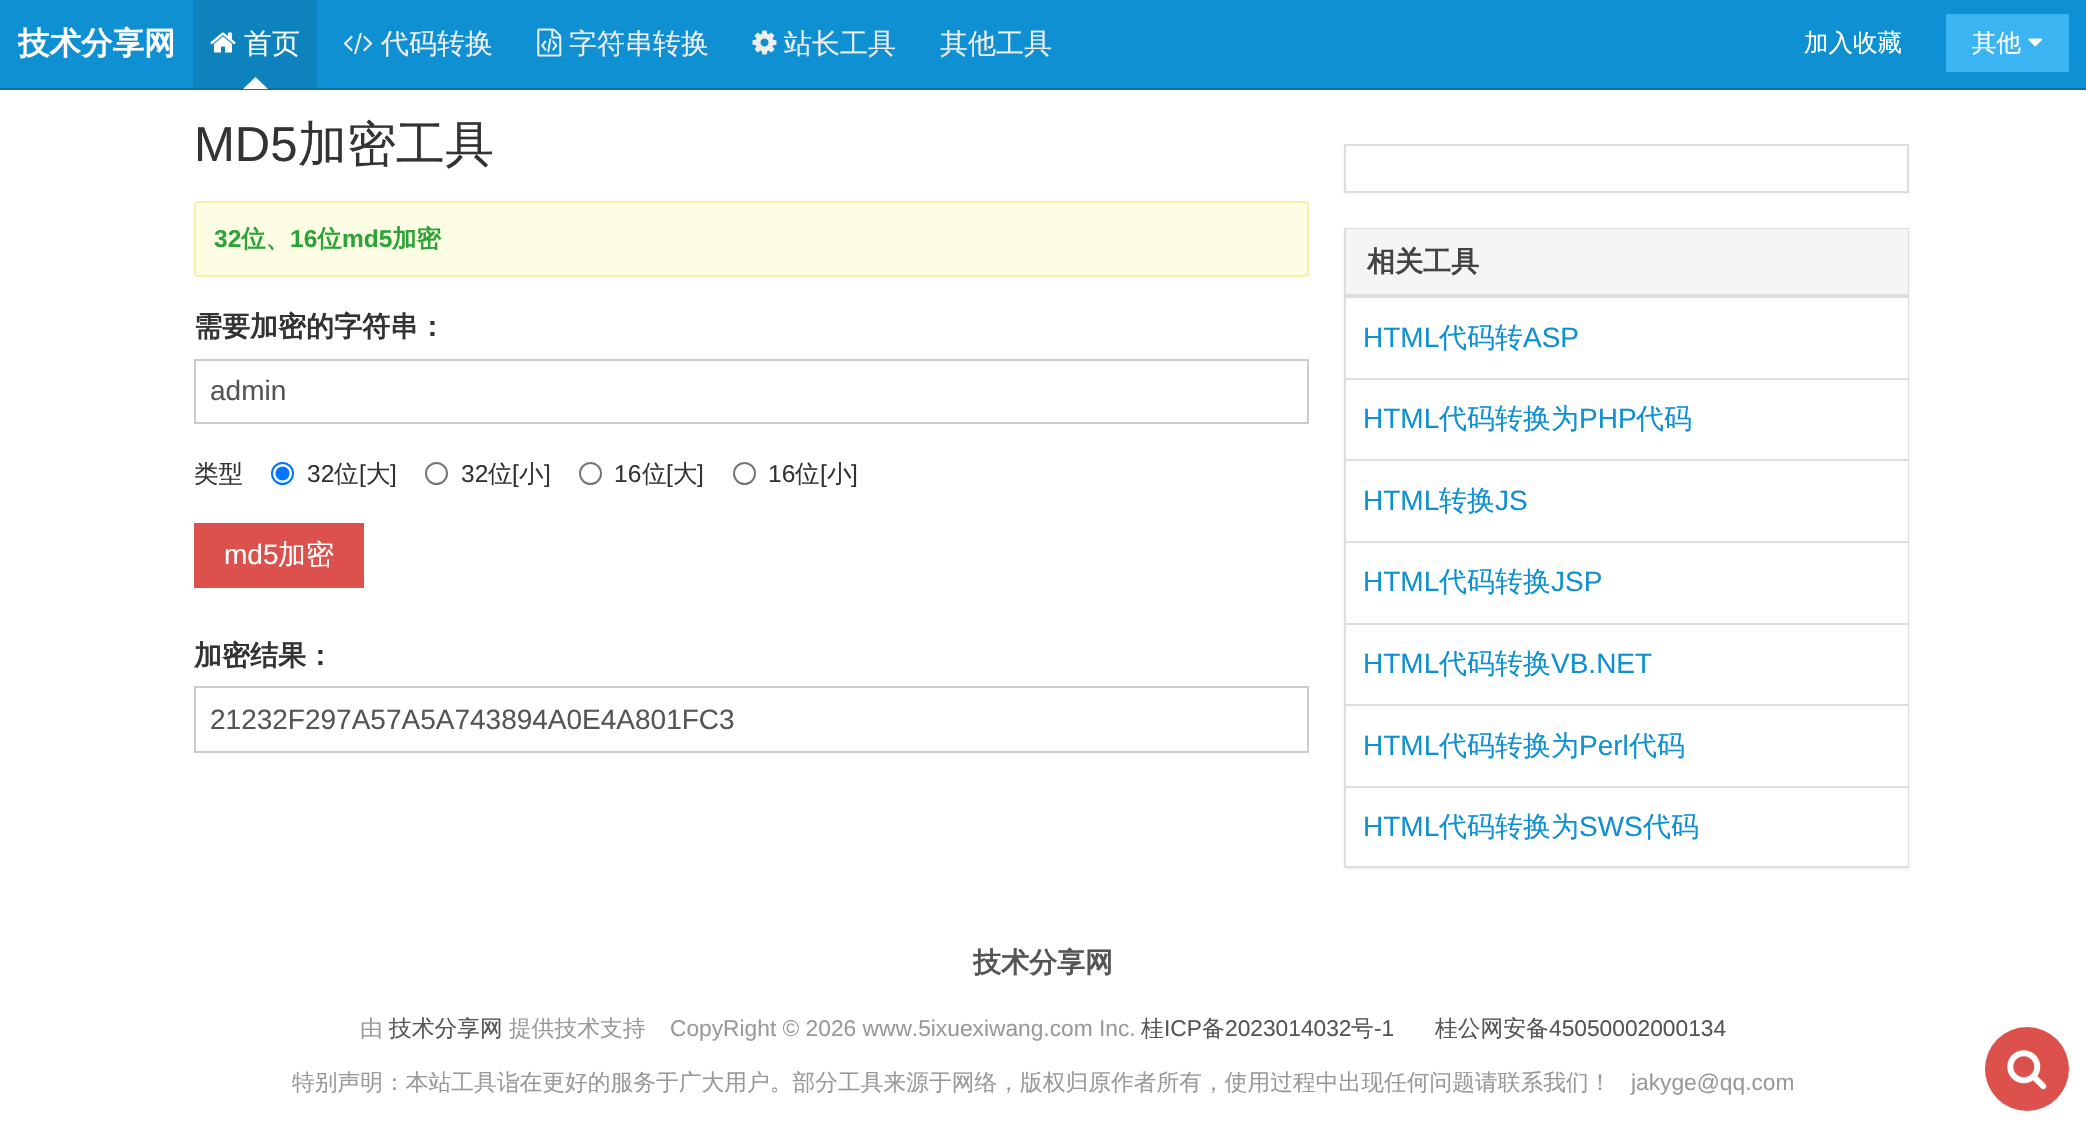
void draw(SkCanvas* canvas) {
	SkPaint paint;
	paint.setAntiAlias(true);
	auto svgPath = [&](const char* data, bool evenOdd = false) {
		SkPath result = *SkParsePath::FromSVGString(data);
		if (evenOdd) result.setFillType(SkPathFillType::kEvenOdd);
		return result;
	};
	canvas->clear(0xffffffff);
	paint.setColor(0xff0e90d2);
	canvas->drawRect(SkRect::MakeXYWH(0, 0, 2086, 88), paint);
	paint.setColor(0xff0b6fa2);
	canvas->drawRect(SkRect::MakeXYWH(0, 88, 2086, 2), paint);
	SkFont f1(fontMgr->matchFamilyStyle("WenQuanYi Zen Hei", SkFontStyle::Bold()), 31.5);
	f1.setSubpixel(true);
	paint.setColor(0xffffffff);
	canvas->drawString("技术分享网", 18, 54, f1, paint);
	paint.setColor(0xff0d82bd);
	canvas->drawRect(SkRect::MakeXYWH(193, 0, 124, 88), paint);
	canvas->drawImageRect(SkImages::DeferredFromEncodedData(SkData::MakeFromFileName("img1.png")), SkRect::MakeXYWH(210, 32, 26, 21), SkSamplingOptions());
	SkFont f2(fontMgr->matchFamilyStyle("WenQuanYi Zen Hei", SkFontStyle(500, SkFontStyle::kNormal_Width, SkFontStyle::kUpright_Slant)), 28);
	f2.setSubpixel(true);
	paint.setColor(0xffffffff);
	canvas->drawString("首页", 244, 53, f2, paint);
	canvas->drawPath(svgPath("M268 89H243L255.5 77Z"), paint);
	canvas->drawImageRect(SkImages::DeferredFromEncodedData(SkData::MakeFromFileName("img2.png")), SkRect::MakeXYWH(343, 32, 30, 23), SkSamplingOptions());
	paint.setColor(0xffeeeeee);
	canvas->drawString("代码转换", 381, 53, f2, paint);
	canvas->drawImageRect(SkImages::DeferredFromEncodedData(SkData::MakeFromFileName("img3.png")), SkRect::MakeXYWH(537, 28, 25, 29), SkSamplingOptions());
	canvas->drawString("字符串转换", 569, 53, f2, paint);
	canvas->drawImageRect(SkImages::DeferredFromEncodedData(SkData::MakeFromFileName("img4.png")), SkRect::MakeXYWH(752, 30, 25, 25), SkSamplingOptions());
	canvas->drawString("站长工具", 784, 53, f2, paint);
	canvas->drawString("其他工具", 940, 53, f2, paint);
	SkFont f3(fontMgr->matchFamilyStyle("WenQuanYi Zen Hei", SkFontStyle(500, SkFontStyle::kNormal_Width, SkFontStyle::kUpright_Slant)), 24.5);
	f3.setSubpixel(true);
	paint.setColor(0xffffffff);
	canvas->drawString("加入收藏", 1804, 51, f3, paint);
	paint.setColor(0xff3bb4f2);
	canvas->drawRect(SkRect::MakeXYWH(1946, 14, 123, 58), paint);
	paint.setColor(0xffffffff);
	canvas->drawString("其他", 1972, 51, f3, paint);
	canvas->drawImageRect(SkImages::DeferredFromEncodedData(SkData::MakeFromFileName("img5.png")), SkRect::MakeXYWH(2028, 38, 15, 9), SkSamplingOptions());
	SkFont f4(fontMgr->matchFamilyStyle("Liberation Sans", SkFontStyle::Normal()), 49);
	f4.setSubpixel(true);
	paint.setColor(0xff333333);
	canvas->drawString("MD5", 194, 161, f4, paint);
	SkFont f5(fontMgr->matchFamilyStyle("WenQuanYi Zen Hei", SkFontStyle(500, SkFontStyle::kNormal_Width, SkFontStyle::kUpright_Slant)), 49);
	f5.setSubpixel(true);
	canvas->drawString("加密工具", 298, 161, f5, paint);
	paint.setColor(0xfffdfde3);
	canvas->drawRoundRect(SkRect::MakeXYWH(195, 202, 1113, 74), 3, 3, paint);
	paint.setStroke(true);
	paint.setStrokeWidth(2);
	paint.setColor(0xfffbebaf);
	canvas->drawRoundRect(SkRect::MakeXYWH(195, 202, 1113, 74), 3, 3, paint);
	SkFont f6(fontMgr->matchFamilyStyle("Liberation Sans", SkFontStyle::Bold()), 24.5);
	f6.setSubpixel(true);
	paint.setStroke(false);
	paint.setColor(0xff2ca337);
	canvas->drawString("32", 214, 247, f6, paint);
	SkFont f7(fontMgr->matchFamilyStyle("WenQuanYi Zen Hei", SkFontStyle::Bold()), 24.5);
	f7.setSubpixel(true);
	canvas->drawString("位、", 241, 247, f7, paint);
	canvas->drawString("16", 290, 247, f6, paint);
	canvas->drawString("位", 317, 247, f7, paint);
	canvas->drawString("md5", 342, 247, f6, paint);
	canvas->drawString("加密", 392, 247, f7, paint);
	SkFont f8(fontMgr->matchFamilyStyle("WenQuanYi Zen Hei", SkFontStyle::Bold()), 28);
	f8.setSubpixel(true);
	paint.setColor(0xff333333);
	canvas->drawString("需要加密的字符串：", 194, 336, f8, paint);
	paint.setStroke(true);
	paint.setColor(0xffcccccc);
	canvas->drawRect(SkRect::MakeXYWH(195, 360, 1113, 63), paint);
	SkFont f9(fontMgr->matchFamilyStyle("Liberation Sans", SkFontStyle::Normal()), 28);
	f9.setSubpixel(true);
	paint.setStroke(false);
	paint.setColor(0xff555555);
	canvas->drawString("admin", 210, 400, f9, paint);
	paint.setColor(0xff333333);
	canvas->drawString("类型", 194, 482, f3, paint);
	paint.setStroke(true);
	paint.setColor(0xff0075ff);
	canvas->drawCircle(282.5, 473.5, 10.5, paint);
	paint.setStroke(false);
	canvas->drawCircle(282.5, 473.5, 7, paint);
	SkFont f10(fontMgr->matchFamilyStyle("Liberation Sans", SkFontStyle::Normal()), 24.5);
	f10.setSubpixel(true);
	paint.setColor(0xff333333);
	canvas->drawString("32", 307, 482, f10, paint);
	canvas->drawString("位", 334, 482, f3, paint);
	canvas->drawString("[", 359, 482, f10, paint);
	canvas->drawString("大", 366, 482, f3, paint);
	canvas->drawString("]", 390, 482, f10, paint);
	paint.setStroke(true);
	paint.setColor(0xff767676);
	canvas->drawCircle(436.5, 473.5, 10.5, paint);
	paint.setStroke(false);
	paint.setColor(0xff333333);
	canvas->drawString("32", 461, 482, f10, paint);
	canvas->drawString("位", 488, 482, f3, paint);
	canvas->drawString("[", 512, 482, f10, paint);
	canvas->drawString("小", 519, 482, f3, paint);
	canvas->drawString("]", 544, 482, f10, paint);
	paint.setStroke(true);
	paint.setColor(0xff767676);
	canvas->drawCircle(590.5, 473.5, 10.5, paint);
	paint.setStroke(false);
	paint.setColor(0xff333333);
	canvas->drawString("16", 614, 482, f10, paint);
	canvas->drawString("位", 642, 482, f3, paint);
	canvas->drawString("[", 666, 482, f10, paint);
	canvas->drawString("大", 673, 482, f3, paint);
	canvas->drawString("]", 697, 482, f10, paint);
	paint.setStroke(true);
	paint.setColor(0xff767676);
	canvas->drawCircle(744.5, 473.5, 10.5, paint);
	paint.setStroke(false);
	paint.setColor(0xff333333);
	canvas->drawString("16", 768, 482, f10, paint);
	canvas->drawString("位", 795, 482, f3, paint);
	canvas->drawString("[", 820, 482, f10, paint);
	canvas->drawString("小", 827, 482, f3, paint);
	canvas->drawString("]", 851, 482, f10, paint);
	paint.setColor(0xffdd514c);
	canvas->drawRect(SkRect::MakeXYWH(194, 523, 170, 65), paint);
	paint.setColor(0xffffffff);
	canvas->drawString("md5", 224, 564, f9, paint);
	canvas->drawString("加密", 278, 564, f2, paint);
	paint.setColor(0xff333333);
	canvas->drawString("加密结果：", 194, 665, f8, paint);
	paint.setStroke(true);
	paint.setColor(0xffcccccc);
	canvas->drawRect(SkRect::MakeXYWH(195, 687, 1113, 65), paint);
	paint.setStroke(false);
	paint.setColor(0xff555555);
	canvas->drawString("21232F297A57A5A743894A0E4A801FC3", 210, 729, f9, paint);
	paint.setColor(0x0d000000);
	paint.setMaskFilter(SkMaskFilter::MakeBlur(kNormal_SkBlurStyle, 1));
	canvas->drawRect(SkRect::MakeXYWH(1344, 145, 565, 49), paint);
	paint.setMaskFilter(nullptr);
	paint.setColor(0xffffffff);
	canvas->drawRect(SkRect::MakeXYWH(1345, 145, 563, 47), paint);
	paint.setStroke(true);
	paint.setColor(0xffdddddd);
	canvas->drawRect(SkRect::MakeXYWH(1345, 145, 563, 47), paint);
	paint.setStroke(false);
	paint.setColor(0x0d000000);
	paint.setMaskFilter(SkMaskFilter::MakeBlur(kNormal_SkBlurStyle, 1));
	canvas->drawRect(SkRect::MakeXYWH(1344, 229, 565, 641), paint);
	paint.setMaskFilter(nullptr);
	paint.setStroke(true);
	paint.setColor(0xffdddddd);
	canvas->drawRect(SkRect::MakeXYWH(1345, 229, 563, 638), paint);
	paint.setStroke(false);
	paint.setColor(0xfff5f5f5);
	canvas->drawRect(SkRect::MakeXYWH(1346, 229, 562, 65), paint);
	paint.setColor(0xffdddddd);
	canvas->drawRect(SkRect::MakeXYWH(1346, 294, 562, 2), paint);
	paint.setColor(0xff444444);
	canvas->drawString("相关工具", 1367, 271, f8, paint);
	paint.setColor(0xffffffff);
	canvas->drawRect(SkRect::MakeXYWH(1346, 298, 562, 80), paint);
	paint.setColor(0xffdedede);
	canvas->drawRect(SkRect::MakeXYWH(1346, 296, 562, 2), paint);
	canvas->drawRect(SkRect::MakeXYWH(1346, 378, 562, 2), paint);
	paint.setColor(0xff0e90d2);
	canvas->drawString("HTML", 1363, 347, f9, paint);
	canvas->drawString("代码转", 1439, 347, f2, paint);
	canvas->drawString("ASP", 1523, 347, f9, paint);
	paint.setColor(0xffffffff);
	canvas->drawRect(SkRect::MakeXYWH(1346, 380, 562, 79), paint);
	paint.setColor(0xff0e90d2);
	canvas->drawString("HTML", 1363, 428, f9, paint);
	canvas->drawString("代码转换为", 1439, 428, f2, paint);
	canvas->drawString("PHP", 1579, 428, f9, paint);
	canvas->drawString("代码", 1636, 428, f2, paint);
	paint.setColor(0xffffffff);
	canvas->drawRect(SkRect::MakeXYWH(1346, 461, 562, 80), paint);
	paint.setColor(0xffdedede);
	canvas->drawRect(SkRect::MakeXYWH(1346, 459, 562, 2), paint);
	canvas->drawRect(SkRect::MakeXYWH(1346, 541, 562, 2), paint);
	paint.setColor(0xff0e90d2);
	canvas->drawString("HTML", 1363, 510, f9, paint);
	canvas->drawString("转换", 1439, 510, f2, paint);
	canvas->drawString("JS", 1495, 510, f9, paint);
	paint.setColor(0xffffffff);
	canvas->drawRect(SkRect::MakeXYWH(1346, 543, 562, 80), paint);
	paint.setColor(0xffdedede);
	canvas->drawRect(SkRect::MakeXYWH(1346, 623, 562, 2), paint);
	paint.setColor(0xff0e90d2);
	canvas->drawString("HTML", 1363, 591, f9, paint);
	canvas->drawString("代码转换", 1439, 591, f2, paint);
	canvas->drawString("JSP", 1551, 591, f9, paint);
	paint.setColor(0xffffffff);
	canvas->drawRect(SkRect::MakeXYWH(1346, 625, 562, 79), paint);
	paint.setColor(0xff0e90d2);
	canvas->drawString("HTML", 1363, 673, f9, paint);
	canvas->drawString("代码转换", 1439, 673, f2, paint);
	canvas->drawString("VB.NET", 1551, 673, f9, paint);
	paint.setColor(0xffffffff);
	canvas->drawRect(SkRect::MakeXYWH(1346, 706, 562, 80), paint);
	paint.setColor(0xffdedede);
	canvas->drawRect(SkRect::MakeXYWH(1346, 704, 562, 2), paint);
	canvas->drawRect(SkRect::MakeXYWH(1346, 786, 562, 2), paint);
	paint.setColor(0xff0e90d2);
	canvas->drawString("HTML", 1363, 755, f9, paint);
	canvas->drawString("代码转换为", 1439, 755, f2, paint);
	canvas->drawString("Perl", 1579, 755, f9, paint);
	canvas->drawString("代码", 1629, 755, f2, paint);
	paint.setColor(0xffffffff);
	canvas->drawRect(SkRect::MakeXYWH(1346, 788, 562, 78), paint);
	paint.setColor(0xff0e90d2);
	canvas->drawString("HTML", 1363, 836, f9, paint);
	canvas->drawString("代码转换为", 1439, 836, f2, paint);
	canvas->drawString("SWS", 1579, 836, f9, paint);
	canvas->drawString("代码", 1643, 836, f2, paint);
	paint.setColor(0xff555555);
	canvas->drawString("技术分享网", 973, 972, f8, paint);
	SkFont f11(fontMgr->matchFamilyStyle("WenQuanYi Zen Hei", SkFontStyle(500, SkFontStyle::kNormal_Width, SkFontStyle::kUpright_Slant)), 22.75);
	f11.setSubpixel(true);
	paint.setColor(0xff999999);
	canvas->drawString("由", 360, 1036, f11, paint);
	paint.setColor(0xff555555);
	canvas->drawString("技术分享网", 389, 1036, f11, paint);
	paint.setColor(0xff999999);
	canvas->drawString("提供技术支持", 509, 1036, f11, paint);
	SkFont f12(fontMgr->matchFamilyStyle("Liberation Sans", SkFontStyle::Normal()), 22.75);
	f12.setSubpixel(true);
	canvas->drawString("CopyRight © 2026 www.5ixuexiwang.com Inc.", 670, 1036, f12, paint);
	paint.setColor(0xff555555);
	canvas->drawString("桂", 1141, 1036, f11, paint);
	canvas->drawString("ICP", 1164, 1036, f12, paint);
	canvas->drawString("备", 1202, 1036, f11, paint);
	canvas->drawString("2023014032", 1225, 1036, f12, paint);
	canvas->drawString("号", 1351, 1036, f11, paint);
	canvas->drawString("-1", 1374, 1036, f12, paint);
	canvas->drawString("桂公网安备", 1435, 1036, f11, paint);
	canvas->drawString("45050002000134", 1549, 1036, f12, paint);
	paint.setColor(0xff999999);
	canvas->drawString("特别声明：本站工具诣在更好的服务于广大用户。部分工具来源于网络，版权归原作者所有，使用过程中出现任何问题请联系我们！", 292, 1090, f11, paint);
	canvas->drawString("jakyge@qq.com", 1631, 1090, f12, paint);
	paint.setColor(0xffdd514c);
	canvas->drawCircle(2027, 1069, 42, paint);
	canvas->drawImageRect(SkImages::DeferredFromEncodedData(SkData::MakeFromFileName("img6.png")), SkRect::MakeXYWH(2007, 1050, 40, 40), SkSamplingOptions());
}
